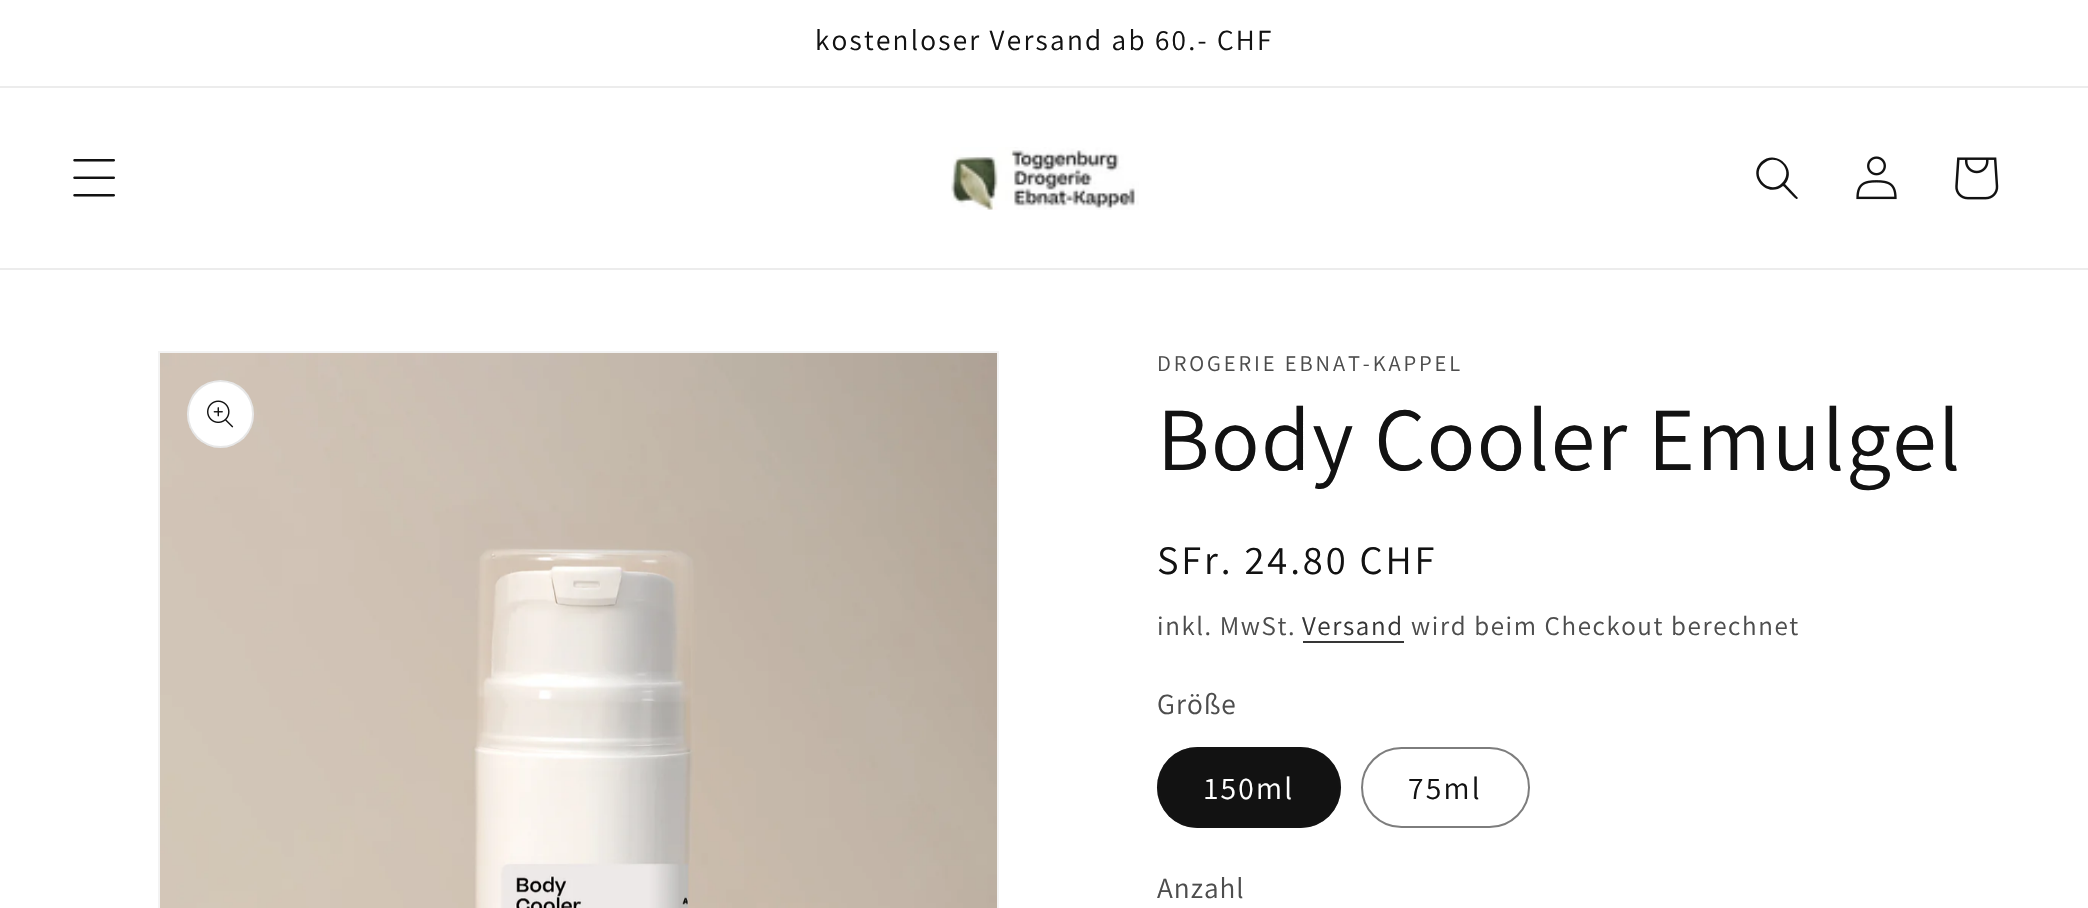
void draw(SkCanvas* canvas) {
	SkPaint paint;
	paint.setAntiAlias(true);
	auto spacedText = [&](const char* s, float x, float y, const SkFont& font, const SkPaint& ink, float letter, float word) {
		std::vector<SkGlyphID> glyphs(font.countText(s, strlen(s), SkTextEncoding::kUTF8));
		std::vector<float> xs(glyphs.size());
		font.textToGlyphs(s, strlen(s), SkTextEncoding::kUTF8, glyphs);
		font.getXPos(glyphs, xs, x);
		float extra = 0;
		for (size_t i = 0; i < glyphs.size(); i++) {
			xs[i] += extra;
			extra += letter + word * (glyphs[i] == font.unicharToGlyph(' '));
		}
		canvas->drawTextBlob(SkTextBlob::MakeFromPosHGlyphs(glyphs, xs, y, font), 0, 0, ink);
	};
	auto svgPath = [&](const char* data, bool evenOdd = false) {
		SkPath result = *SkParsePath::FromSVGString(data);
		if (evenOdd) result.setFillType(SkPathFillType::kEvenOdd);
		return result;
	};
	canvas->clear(0xffffffff);
	paint.setColor(0xffececec);
	canvas->drawRect(SkRect::MakeXYWH(0, 86, 2088, 2), paint);
	SkFont f1(fontMgr->matchFamilyStyle("Assistant", SkFontStyle::Normal()), 29.25);
	f1.setSubpixel(true);
	paint.setColor(0xff121212);
	spacedText("kostenloser Versand ab 60.- CHF", 815, 50, f1, paint, 2.25, 0);
	paint.setColor(0xffececec);
	canvas->drawRect(SkRect::MakeXYWH(0, 268, 2088, 2), paint);
	canvas->drawImageRect(SkImages::DeferredFromEncodedData(SkData::MakeFromFileName("img1.png")), SkRect::MakeXYWH(73, 159, 42, 38), SkSamplingOptions());
	canvas->drawImageRect(SkImages::DeferredFromEncodedData(SkData::MakeFromFileName("img2.png")), SkRect::MakeXYWH(951, 147, 188, 63), SkSamplingOptions());
	paint.setColor(0xff121212);
	canvas->drawPath(svgPath("M1782 183C1770 196 1750 176 1763 164C1776 151 1795 170 1782 183ZM1783 186C1767 199 1747 176 1761 162C1776 148 1798 169 1785 184L1798 198L1797 199C1796 200 1785 187 1783 186Z", true), paint);
	canvas->drawImageRect(SkImages::DeferredFromEncodedData(SkData::MakeFromFileName("img3.png")), SkRect::MakeXYWH(1856, 156, 41, 44), SkSamplingOptions());
	canvas->drawImageRect(SkImages::DeferredFromEncodedData(SkData::MakeFromFileName("img4.png")), SkRect::MakeXYWH(1955, 157, 44, 43), SkSamplingOptions());
	paint.setStroke(true);
	paint.setStrokeWidth(2);
	paint.setColor(0xfff3f3f3);
	canvas->drawRect(SkRect::MakeXYWH(159, 352, 839, 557), paint);
	canvas->drawImageRect(SkImages::DeferredFromEncodedData(SkData::MakeFromFileName("img5.png")), SkRect::MakeXYWH(160, 353, 837, 555), SkSamplingOptions());
	paint.setStroke(false);
	paint.setColor(0xffffffff);
	canvas->drawRoundRect(SkRect::MakeXYWH(187, 380, 67, 68), 33.5, 33.5, paint);
	paint.setStroke(true);
	paint.setColor(0x1a121212);
	canvas->drawRoundRect(SkRect::MakeXYWH(188, 381, 65, 66), 32.5, 32.5, paint);
	canvas->drawImageRect(SkImages::DeferredFromEncodedData(SkData::MakeFromFileName("img6.png")), SkRect::MakeXYWH(207, 400, 27, 28), SkSamplingOptions());
	SkFont f2(fontMgr->matchFamilyStyle("Assistant", SkFontStyle::Normal()), 22.5);
	f2.setSubpixel(true);
	paint.setStroke(false);
	paint.setColor(0xff4d4d4d);
	spacedText("DROGERIE EBNAT-KAPPEL", 1157, 371, f2, paint, 2.9, 0);
	SkFont f3(fontMgr->matchFamilyStyle("Assistant", SkFontStyle::Normal()), 90);
	f3.setSubpixel(true);
	paint.setColor(0xff121212);
	spacedText("Body Cooler Emulgel", 1157, 470, f3, paint, 1.4, 0);
	SkFont f4(fontMgr->matchFamilyStyle("Assistant", SkFontStyle::Normal()), 40.5);
	f4.setSubpixel(true);
	spacedText("SFr. 24.80 CHF", 1157, 574, f4, paint, 2.9, 0);
	SkFont f5(fontMgr->matchFamilyStyle("Assistant", SkFontStyle::Normal()), 27);
	f5.setSubpixel(true);
	paint.setColor(0xff4d4d4d);
	spacedText("inkl. MwSt.", 1157, 635, f5, paint, 1.6, 0);
	paint.setColor(0xff363636);
	spacedText("Versand", 1302, 635, f5, paint, 1.6, 0);
	canvas->drawRect(SkRect::MakeXYWH(1303, 641, 101, 2), paint);
	paint.setColor(0xff4d4d4d);
	spacedText("wird beim Checkout berechnet", 1411, 635, f5, paint, 1.6, 0);
	spacedText("Größe", 1157, 714, f1, paint, 1, 0);
	paint.setColor(0xff121212);
	canvas->drawRoundRect(SkRect::MakeXYWH(1157, 747, 184, 81), 40.5, 40.5, paint);
	paint.setStroke(true);
	paint.setColor(0x8c121212);
	canvas->drawRoundRect(SkRect::MakeXYWH(1158, 748, 182, 79), 39.5, 39.5, paint);
	SkFont f6(fontMgr->matchFamilyStyle("Assistant", SkFontStyle::Normal()), 31.5);
	f6.setSubpixel(true);
	paint.setStroke(false);
	paint.setColor(0xffffffff);
	spacedText("150ml", 1204, 799, f6, paint, 2.25, 0);
	paint.setStroke(true);
	paint.setColor(0xff7d7d7d);
	canvas->drawRoundRect(SkRect::MakeXYWH(1362, 748, 167, 79), 39.5, 39.5, paint);
	paint.setStroke(false);
	paint.setColor(0xff121212);
	spacedText("75ml", 1408, 799, f6, paint, 2.25, 0);
	paint.setColor(0xff4d4d4d);
	spacedText("Anzahl", 1157, 898, f1, paint, 1, 0);
}
